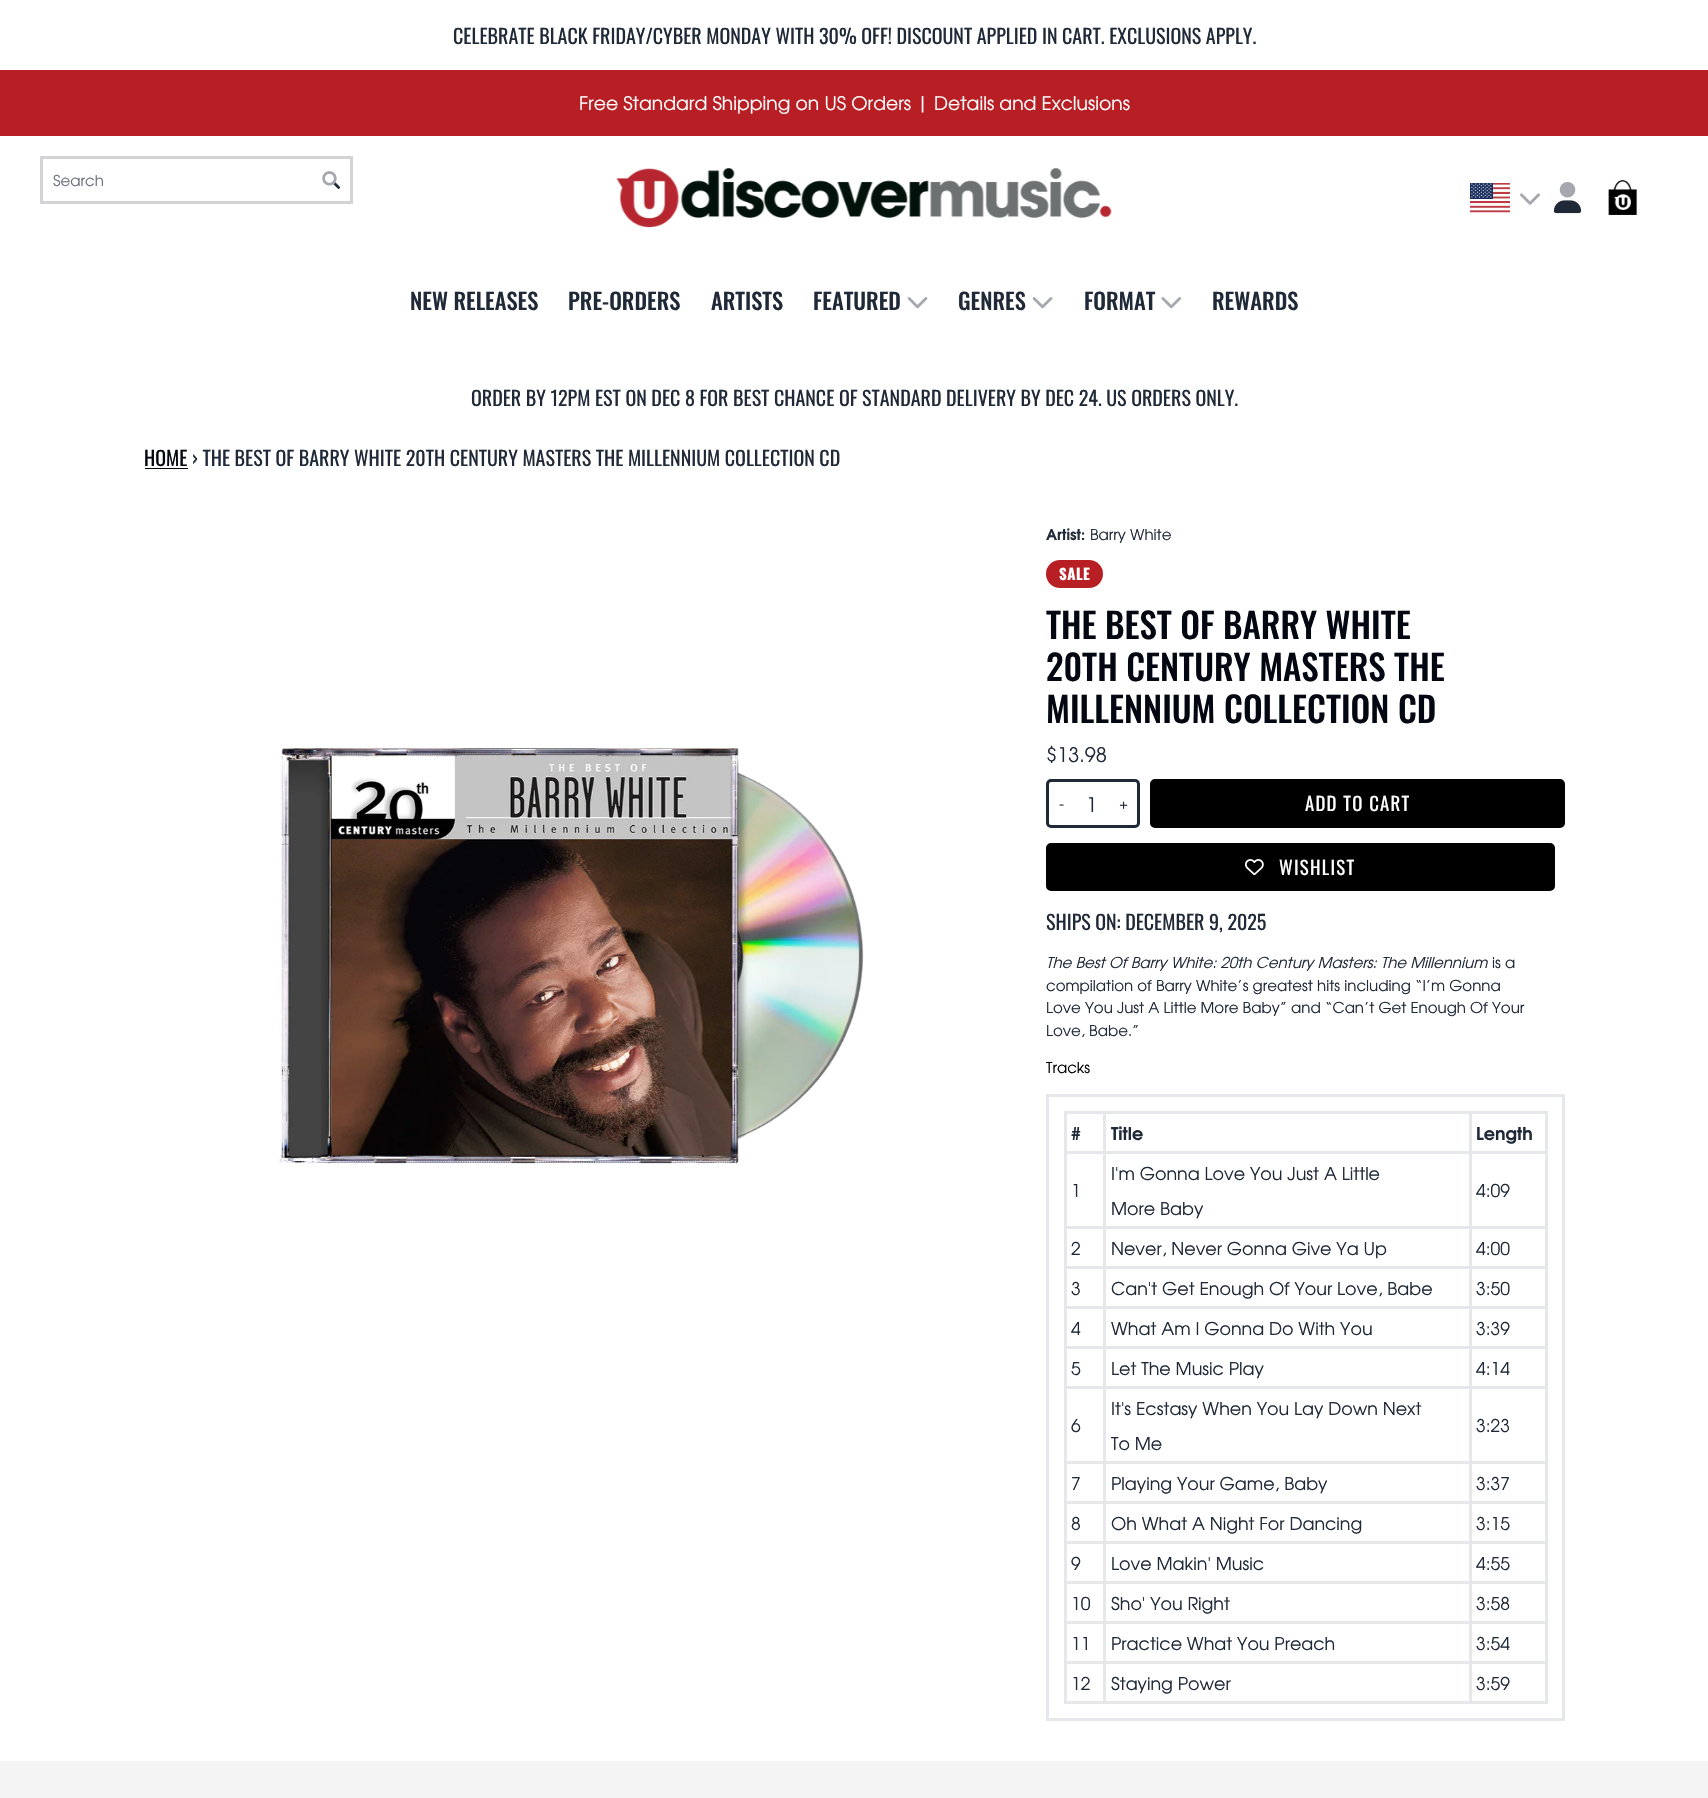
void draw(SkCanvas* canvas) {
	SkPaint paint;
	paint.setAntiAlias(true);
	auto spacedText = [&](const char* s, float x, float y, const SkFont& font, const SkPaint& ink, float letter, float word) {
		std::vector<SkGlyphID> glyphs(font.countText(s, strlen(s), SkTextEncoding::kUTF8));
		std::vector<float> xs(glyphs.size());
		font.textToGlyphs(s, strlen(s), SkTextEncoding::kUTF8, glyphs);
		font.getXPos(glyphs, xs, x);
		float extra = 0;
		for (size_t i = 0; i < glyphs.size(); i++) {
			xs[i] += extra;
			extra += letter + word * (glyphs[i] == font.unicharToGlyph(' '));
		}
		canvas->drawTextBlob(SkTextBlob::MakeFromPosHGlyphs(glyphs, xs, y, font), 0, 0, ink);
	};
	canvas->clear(0xffffffff);
	SkFont f1(fontMgr->matchFamilyStyle("Oswald", SkFontStyle::Normal()), 20);
	f1.setSubpixel(true);
	paint.setColor(0xff1f2937);
	canvas->drawString("CELEBRATE BLACK FRIDAY/CYBER MONDAY WITH 30% OFF! DISCOUNT APPLIED IN CART. EXCLUSIONS APPLY.", 453, 44, f1, paint);
	paint.setColor(0xffb71f24);
	canvas->drawRect(SkRect::MakeXYWH(0, 70, 1708, 66), paint);
	SkFont f2(fontMgr->matchFamilyStyle("TeX Gyre Adventor", SkFontStyle::Normal()), 18.75);
	f2.setSubpixel(true);
	paint.setColor(0xffffffff);
	canvas->drawString("Free Standard Shipping on US Orders | Details and Exclusions", 579, 110, f2, paint);
	paint.setStroke(true);
	paint.setStrokeWidth(3);
	paint.setColor(0xffd4d4d8);
	canvas->drawRect(SkRect::MakeXYWH(41.5, 157.5, 310, 45), paint);
	SkFont f3(fontMgr->matchFamilyStyle("TeX Gyre Adventor", SkFontStyle::Normal()), 15);
	f3.setSubpixel(true);
	paint.setStroke(false);
	paint.setColor(0xff6b7280);
	canvas->drawString("Search", 53, 186, f3, paint);
	canvas->drawImageRect(SkImages::DeferredFromEncodedData(SkData::MakeFromFileName("img1.png")), SkRect::MakeXYWH(322, 171, 18, 18), SkSamplingOptions());
	canvas->drawImageRect(SkImages::DeferredFromEncodedData(SkData::MakeFromFileName("img2.png")), SkRect::MakeXYWH(616, 168, 496, 60), SkSamplingOptions());
	canvas->drawImageRect(SkImages::DeferredFromEncodedData(SkData::MakeFromFileName("img3.png")), SkRect::MakeXYWH(1470, 183, 40, 30), SkSamplingOptions());
	canvas->drawImageRect(SkImages::DeferredFromEncodedData(SkData::MakeFromFileName("img4.png")), SkRect::MakeXYWH(1520, 193, 20, 12), SkSamplingOptions());
	canvas->drawImageRect(SkImages::DeferredFromEncodedData(SkData::MakeFromFileName("img5.png")), SkRect::MakeXYWH(1553, 182, 29, 32), SkSamplingOptions());
	canvas->drawImageRect(SkImages::DeferredFromEncodedData(SkData::MakeFromFileName("img6.png")), SkRect::MakeXYWH(1608, 180, 30, 35), SkSamplingOptions());
	SkFont f4(fontMgr->matchFamilyStyle("Oswald", SkFontStyle(500, SkFontStyle::kNormal_Width, SkFontStyle::kUpright_Slant)), 22.5);
	f4.setSubpixel(true);
	paint.setColor(0xff1f2937);
	canvas->drawString("NEW RELEASES", 410, 310, f4, paint);
	canvas->drawString("PRE-ORDERS", 568, 310, f4, paint);
	canvas->drawString("ARTISTS", 711, 310, f4, paint);
	canvas->drawString("FEATURED", 813, 310, f4, paint);
	canvas->drawImageRect(SkImages::DeferredFromEncodedData(SkData::MakeFromFileName("img7.png")), SkRect::MakeXYWH(907, 297, 21, 12), SkSamplingOptions());
	canvas->drawString("GENRES", 958, 310, f4, paint);
	canvas->drawImageRect(SkImages::DeferredFromEncodedData(SkData::MakeFromFileName("img7.png")), SkRect::MakeXYWH(1032, 297, 21, 12), SkSamplingOptions());
	canvas->drawString("FORMAT", 1084, 310, f4, paint);
	canvas->drawImageRect(SkImages::DeferredFromEncodedData(SkData::MakeFromFileName("img8.png")), SkRect::MakeXYWH(1161, 297, 20, 12), SkSamplingOptions());
	canvas->drawString("REWARDS", 1212, 310, f4, paint);
	canvas->drawString("ORDER BY 12PM EST ON DEC 8 FOR BEST CHANCE OF STANDARD DELIVERY BY DEC 24. US ORDERS ONLY.", 471, 406, f1, paint);
	paint.setColor(0xff030711);
	canvas->drawString("HOME", 144, 466, f1, paint);
	canvas->drawRect(SkRect::MakeXYWH(145, 468, 43, 1), paint);
	paint.setColor(0xff1f2937);
	canvas->drawString("› THE BEST OF BARRY WHITE 20TH CENTURY MASTERS THE MILLENNIUM COLLECTION CD", 192, 466, f1, paint);
	canvas->drawImageRect(SkImages::DeferredFromEncodedData(SkData::MakeFromFileName("img9.png")), SkRect::MakeXYWH(279, 748, 585, 416), SkSamplingOptions());
	SkFont f5(fontMgr->matchFamilyStyle("TeX Gyre Adventor", SkFontStyle::Bold()), 15);
	f5.setSubpixel(true);
	canvas->drawString("Artist:", 1046, 540, f5, paint);
	canvas->drawString("Barry White", 1090, 540, f3, paint);
	paint.setColor(0xffb71f24);
	canvas->drawRoundRect(SkRect::MakeXYWH(1046, 560, 57, 28), 14, 14, paint);
	SkFont f6(fontMgr->matchFamilyStyle("Oswald", SkFontStyle::Bold()), 15);
	f6.setSubpixel(true);
	paint.setColor(0xffffffff);
	spacedText("SALE", 1059, 580, f6, paint, 0.5, 0);
	SkFont f7(fontMgr->matchFamilyStyle("Oswald", SkFontStyle(500, SkFontStyle::kNormal_Width, SkFontStyle::kUpright_Slant)), 35);
	f7.setSubpixel(true);
	paint.setColor(0xff030711);
	canvas->drawString("THE BEST OF BARRY WHITE", 1046, 639, f7, paint);
	canvas->drawString("20TH CENTURY MASTERS THE", 1046, 681, f7, paint);
	canvas->drawString("MILLENNIUM COLLECTION CD", 1046, 723, f7, paint);
	SkFont f8(fontMgr->matchFamilyStyle("TeX Gyre Adventor", SkFontStyle::Normal()), 20);
	f8.setSubpixel(true);
	paint.setColor(0xff1f2937);
	canvas->drawString("$13.98", 1046, 762, f8, paint);
	paint.setStroke(true);
	canvas->drawRoundRect(SkRect::MakeXYWH(1047.5, 780.5, 91, 46), 3.5, 3.5, paint);
	paint.setStroke(false);
	canvas->drawString("-", 1059, 809, f3, paint);
	canvas->drawString("1", 1086, 812, f8, paint);
	canvas->drawString("+", 1119, 809, f3, paint);
	paint.setColor(0xff000000);
	canvas->drawRoundRect(SkRect::MakeXYWH(1151.5, 780.5, 412, 46), 3.5, 3.5, paint);
	paint.setStroke(true);
	canvas->drawRoundRect(SkRect::MakeXYWH(1151.5, 780.5, 412, 46), 3.5, 3.5, paint);
	SkFont f9(fontMgr->matchFamilyStyle("Oswald", SkFontStyle::Normal()), 18.75);
	f9.setSubpixel(true);
	paint.setStroke(false);
	paint.setColor(0xffffffff);
	spacedText("ADD TO CART", 1305, 811, f9, paint, 1.25, 0);
	paint.setColor(0xff000000);
	canvas->drawRoundRect(SkRect::MakeXYWH(1047.5, 844.5, 506, 45), 3.5, 3.5, paint);
	paint.setStroke(true);
	canvas->drawRoundRect(SkRect::MakeXYWH(1047.5, 844.5, 506, 45), 3.5, 3.5, paint);
	canvas->drawImageRect(SkImages::DeferredFromEncodedData(SkData::MakeFromFileName("img10.png")), SkRect::MakeXYWH(1245, 859, 19, 17), SkSamplingOptions());
	paint.setStroke(false);
	paint.setColor(0xffffffff);
	spacedText("WISHLIST", 1279, 875, f9, paint, 1.25, 0);
	paint.setColor(0xff1f2937);
	canvas->drawString("SHIPS ON: DECEMBER 9, 2025", 1046, 930, f1, paint);
	SkFont f10(fontMgr->matchFamilyStyle("TeX Gyre Adventor", SkFontStyle::Italic()), 15);
	f10.setSubpixel(true);
	canvas->drawString("The Best Of Barry White: 20th Century Masters: The Millennium", 1046, 968, f10, paint);
	canvas->drawString("is a", 1492, 968, f3, paint);
	canvas->drawString("compilation of Barry White’s greatest hits including “I’m Gonna", 1046, 991, f3, paint);
	canvas->drawString("Love You Just A Little More Baby” and “Can’t Get Enough Of Your", 1046, 1013, f3, paint);
	canvas->drawString("Love, Babe.”", 1046, 1036, f3, paint);
	paint.setColor(0xff000000);
	canvas->drawString("Tracks", 1046, 1073, f3, paint);
	paint.setStroke(true);
	paint.setColor(0xffe5e7eb);
	canvas->drawRect(SkRect::MakeXYWH(1047.5, 1095.5, 516, 624), paint);
	paint.setStroke(false);
	canvas->drawRect(SkRect::MakeXYWH(1064, 1111, 484, 3), paint);
	canvas->drawRect(SkRect::MakeXYWH(1064, 1111, 3, 40), paint);
	SkFont f11(fontMgr->matchFamilyStyle("TeX Gyre Adventor", SkFontStyle::Bold()), 17.5);
	f11.setSubpixel(true);
	paint.setColor(0xff1f2937);
	canvas->drawString("#", 1071, 1140, f11, paint);
	paint.setColor(0xffe5e7eb);
	canvas->drawRect(SkRect::MakeXYWH(1103, 1111, 3, 40), paint);
	paint.setColor(0xff1f2937);
	canvas->drawString("Title", 1111, 1140, f11, paint);
	paint.setColor(0xffe5e7eb);
	canvas->drawRect(SkRect::MakeXYWH(1545, 1111, 3, 40), paint);
	canvas->drawRect(SkRect::MakeXYWH(1469, 1111, 3, 40), paint);
	paint.setColor(0xff1f2937);
	canvas->drawString("Length", 1476, 1140, f11, paint);
	paint.setColor(0xffe5e7eb);
	canvas->drawRect(SkRect::MakeXYWH(1064, 1151, 484, 3), paint);
	canvas->drawRect(SkRect::MakeXYWH(1064, 1151, 3, 75), paint);
	SkFont f12(fontMgr->matchFamilyStyle("TeX Gyre Adventor", SkFontStyle::Normal()), 17.5);
	f12.setSubpixel(true);
	paint.setColor(0xff1f2937);
	canvas->drawString("1", 1071, 1197, f12, paint);
	paint.setColor(0xffe5e7eb);
	canvas->drawRect(SkRect::MakeXYWH(1103, 1151, 3, 75), paint);
	paint.setColor(0xff1f2937);
	canvas->drawString("I'm Gonna Love You Just A Little", 1111, 1180, f12, paint);
	canvas->drawString("More Baby", 1111, 1215, f12, paint);
	paint.setColor(0xffe5e7eb);
	canvas->drawRect(SkRect::MakeXYWH(1545, 1151, 3, 75), paint);
	canvas->drawRect(SkRect::MakeXYWH(1469, 1151, 3, 75), paint);
	paint.setColor(0xff1f2937);
	canvas->drawString("4:09", 1476, 1197, f12, paint);
	paint.setColor(0xffe5e7eb);
	canvas->drawRect(SkRect::MakeXYWH(1064, 1226, 484, 3), paint);
	canvas->drawRect(SkRect::MakeXYWH(1064, 1226, 3, 40), paint);
	paint.setColor(0xff1f2937);
	canvas->drawString("2", 1071, 1255, f12, paint);
	paint.setColor(0xffe5e7eb);
	canvas->drawRect(SkRect::MakeXYWH(1103, 1226, 3, 40), paint);
	paint.setColor(0xff1f2937);
	canvas->drawString("Never, Never Gonna Give Ya Up", 1111, 1255, f12, paint);
	paint.setColor(0xffe5e7eb);
	canvas->drawRect(SkRect::MakeXYWH(1545, 1226, 3, 40), paint);
	canvas->drawRect(SkRect::MakeXYWH(1469, 1226, 3, 40), paint);
	paint.setColor(0xff1f2937);
	canvas->drawString("4:00", 1476, 1255, f12, paint);
	paint.setColor(0xffe5e7eb);
	canvas->drawRect(SkRect::MakeXYWH(1064, 1266, 484, 3), paint);
	canvas->drawRect(SkRect::MakeXYWH(1064, 1266, 3, 40), paint);
	paint.setColor(0xff1f2937);
	canvas->drawString("3", 1071, 1295, f12, paint);
	paint.setColor(0xffe5e7eb);
	canvas->drawRect(SkRect::MakeXYWH(1103, 1266, 3, 40), paint);
	paint.setColor(0xff1f2937);
	canvas->drawString("Can't Get Enough Of Your Love, Babe", 1111, 1295, f12, paint);
	paint.setColor(0xffe5e7eb);
	canvas->drawRect(SkRect::MakeXYWH(1545, 1266, 3, 40), paint);
	canvas->drawRect(SkRect::MakeXYWH(1469, 1266, 3, 40), paint);
	paint.setColor(0xff1f2937);
	canvas->drawString("3:50", 1476, 1295, f12, paint);
	paint.setColor(0xffe5e7eb);
	canvas->drawRect(SkRect::MakeXYWH(1064, 1306, 484, 3), paint);
	canvas->drawRect(SkRect::MakeXYWH(1064, 1306, 3, 40), paint);
	paint.setColor(0xff1f2937);
	canvas->drawString("4", 1071, 1335, f12, paint);
	paint.setColor(0xffe5e7eb);
	canvas->drawRect(SkRect::MakeXYWH(1103, 1306, 3, 40), paint);
	paint.setColor(0xff1f2937);
	canvas->drawString("What Am I Gonna Do With You", 1111, 1335, f12, paint);
	paint.setColor(0xffe5e7eb);
	canvas->drawRect(SkRect::MakeXYWH(1545, 1306, 3, 40), paint);
	canvas->drawRect(SkRect::MakeXYWH(1469, 1306, 3, 40), paint);
	paint.setColor(0xff1f2937);
	canvas->drawString("3:39", 1476, 1335, f12, paint);
	paint.setColor(0xffe5e7eb);
	canvas->drawRect(SkRect::MakeXYWH(1064, 1346, 484, 3), paint);
	canvas->drawRect(SkRect::MakeXYWH(1064, 1346, 3, 40), paint);
	paint.setColor(0xff1f2937);
	canvas->drawString("5", 1071, 1375, f12, paint);
	paint.setColor(0xffe5e7eb);
	canvas->drawRect(SkRect::MakeXYWH(1103, 1346, 3, 40), paint);
	paint.setColor(0xff1f2937);
	canvas->drawString("Let The Music Play", 1111, 1375, f12, paint);
	paint.setColor(0xffe5e7eb);
	canvas->drawRect(SkRect::MakeXYWH(1545, 1346, 3, 40), paint);
	canvas->drawRect(SkRect::MakeXYWH(1469, 1346, 3, 40), paint);
	paint.setColor(0xff1f2937);
	canvas->drawString("4:14", 1476, 1375, f12, paint);
	paint.setColor(0xffe5e7eb);
	canvas->drawRect(SkRect::MakeXYWH(1064, 1386, 484, 3), paint);
	canvas->drawRect(SkRect::MakeXYWH(1064, 1386, 3, 75), paint);
	paint.setColor(0xff1f2937);
	canvas->drawString("6", 1071, 1432, f12, paint);
	paint.setColor(0xffe5e7eb);
	canvas->drawRect(SkRect::MakeXYWH(1103, 1386, 3, 75), paint);
	paint.setColor(0xff1f2937);
	canvas->drawString("It's Ecstasy When You Lay Down Next", 1111, 1415, f12, paint);
	canvas->drawString("To Me", 1111, 1450, f12, paint);
	paint.setColor(0xffe5e7eb);
	canvas->drawRect(SkRect::MakeXYWH(1545, 1386, 3, 75), paint);
	canvas->drawRect(SkRect::MakeXYWH(1469, 1386, 3, 75), paint);
	paint.setColor(0xff1f2937);
	canvas->drawString("3:23", 1476, 1432, f12, paint);
	paint.setColor(0xffe5e7eb);
	canvas->drawRect(SkRect::MakeXYWH(1064, 1461, 484, 3), paint);
	canvas->drawRect(SkRect::MakeXYWH(1064, 1461, 3, 40), paint);
	paint.setColor(0xff1f2937);
	canvas->drawString("7", 1071, 1490, f12, paint);
	paint.setColor(0xffe5e7eb);
	canvas->drawRect(SkRect::MakeXYWH(1103, 1461, 3, 40), paint);
	paint.setColor(0xff1f2937);
	canvas->drawString("Playing Your Game, Baby", 1111, 1490, f12, paint);
	paint.setColor(0xffe5e7eb);
	canvas->drawRect(SkRect::MakeXYWH(1545, 1461, 3, 40), paint);
	canvas->drawRect(SkRect::MakeXYWH(1469, 1461, 3, 40), paint);
	paint.setColor(0xff1f2937);
	canvas->drawString("3:37", 1476, 1490, f12, paint);
	paint.setColor(0xffe5e7eb);
	canvas->drawRect(SkRect::MakeXYWH(1064, 1501, 484, 3), paint);
	canvas->drawRect(SkRect::MakeXYWH(1064, 1501, 3, 40), paint);
	paint.setColor(0xff1f2937);
	canvas->drawString("8", 1071, 1530, f12, paint);
	paint.setColor(0xffe5e7eb);
	canvas->drawRect(SkRect::MakeXYWH(1103, 1501, 3, 40), paint);
	paint.setColor(0xff1f2937);
	canvas->drawString("Oh What A Night For Dancing", 1111, 1530, f12, paint);
	paint.setColor(0xffe5e7eb);
	canvas->drawRect(SkRect::MakeXYWH(1545, 1501, 3, 40), paint);
	canvas->drawRect(SkRect::MakeXYWH(1469, 1501, 3, 40), paint);
	paint.setColor(0xff1f2937);
	canvas->drawString("3:15", 1476, 1530, f12, paint);
	paint.setColor(0xffe5e7eb);
	canvas->drawRect(SkRect::MakeXYWH(1064, 1541, 484, 3), paint);
	canvas->drawRect(SkRect::MakeXYWH(1064, 1541, 3, 40), paint);
	paint.setColor(0xff1f2937);
	canvas->drawString("9", 1071, 1570, f12, paint);
	paint.setColor(0xffe5e7eb);
	canvas->drawRect(SkRect::MakeXYWH(1103, 1541, 3, 40), paint);
	paint.setColor(0xff1f2937);
	canvas->drawString("Love Makin' Music", 1111, 1570, f12, paint);
	paint.setColor(0xffe5e7eb);
	canvas->drawRect(SkRect::MakeXYWH(1545, 1541, 3, 40), paint);
	canvas->drawRect(SkRect::MakeXYWH(1469, 1541, 3, 40), paint);
	paint.setColor(0xff1f2937);
	canvas->drawString("4:55", 1476, 1570, f12, paint);
	paint.setColor(0xffe5e7eb);
	canvas->drawRect(SkRect::MakeXYWH(1064, 1581, 484, 3), paint);
	canvas->drawRect(SkRect::MakeXYWH(1064, 1581, 3, 40), paint);
	paint.setColor(0xff1f2937);
	canvas->drawString("10", 1071, 1610, f12, paint);
	paint.setColor(0xffe5e7eb);
	canvas->drawRect(SkRect::MakeXYWH(1103, 1581, 3, 40), paint);
	paint.setColor(0xff1f2937);
	canvas->drawString("Sho' You Right", 1111, 1610, f12, paint);
	paint.setColor(0xffe5e7eb);
	canvas->drawRect(SkRect::MakeXYWH(1545, 1581, 3, 40), paint);
	canvas->drawRect(SkRect::MakeXYWH(1469, 1581, 3, 40), paint);
	paint.setColor(0xff1f2937);
	canvas->drawString("3:58", 1476, 1610, f12, paint);
	paint.setColor(0xffe5e7eb);
	canvas->drawRect(SkRect::MakeXYWH(1064, 1621, 484, 3), paint);
	canvas->drawRect(SkRect::MakeXYWH(1064, 1621, 3, 40), paint);
	paint.setColor(0xff1f2937);
	canvas->drawString("11", 1071, 1650, f12, paint);
	paint.setColor(0xffe5e7eb);
	canvas->drawRect(SkRect::MakeXYWH(1103, 1621, 3, 40), paint);
	paint.setColor(0xff1f2937);
	canvas->drawString("Practice What You Preach", 1111, 1650, f12, paint);
	paint.setColor(0xffe5e7eb);
	canvas->drawRect(SkRect::MakeXYWH(1545, 1621, 3, 40), paint);
	canvas->drawRect(SkRect::MakeXYWH(1469, 1621, 3, 40), paint);
	paint.setColor(0xff1f2937);
	canvas->drawString("3:54", 1476, 1650, f12, paint);
	paint.setColor(0xffe5e7eb);
	canvas->drawRect(SkRect::MakeXYWH(1064, 1661, 405, 3), paint);
	canvas->drawRect(SkRect::MakeXYWH(1064, 1701, 405, 3), paint);
	canvas->drawRect(SkRect::MakeXYWH(1064, 1661, 3, 43), paint);
	paint.setColor(0xff1f2937);
	canvas->drawString("12", 1071, 1690, f12, paint);
	paint.setColor(0xffe5e7eb);
	canvas->drawRect(SkRect::MakeXYWH(1103, 1661, 3, 43), paint);
	paint.setColor(0xff1f2937);
	canvas->drawString("Staying Power", 1111, 1690, f12, paint);
	paint.setStroke(true);
	paint.setColor(0xffe5e7eb);
	canvas->drawRect(SkRect::MakeXYWH(1470.5, 1662.5, 76, 40), paint);
	paint.setStroke(false);
	paint.setColor(0xff1f2937);
	canvas->drawString("3:59", 1476, 1690, f12, paint);
	paint.setColor(0xfff4f4f5);
	canvas->drawRect(SkRect::MakeXYWH(0, 1761, 1708, 37), paint);
}
